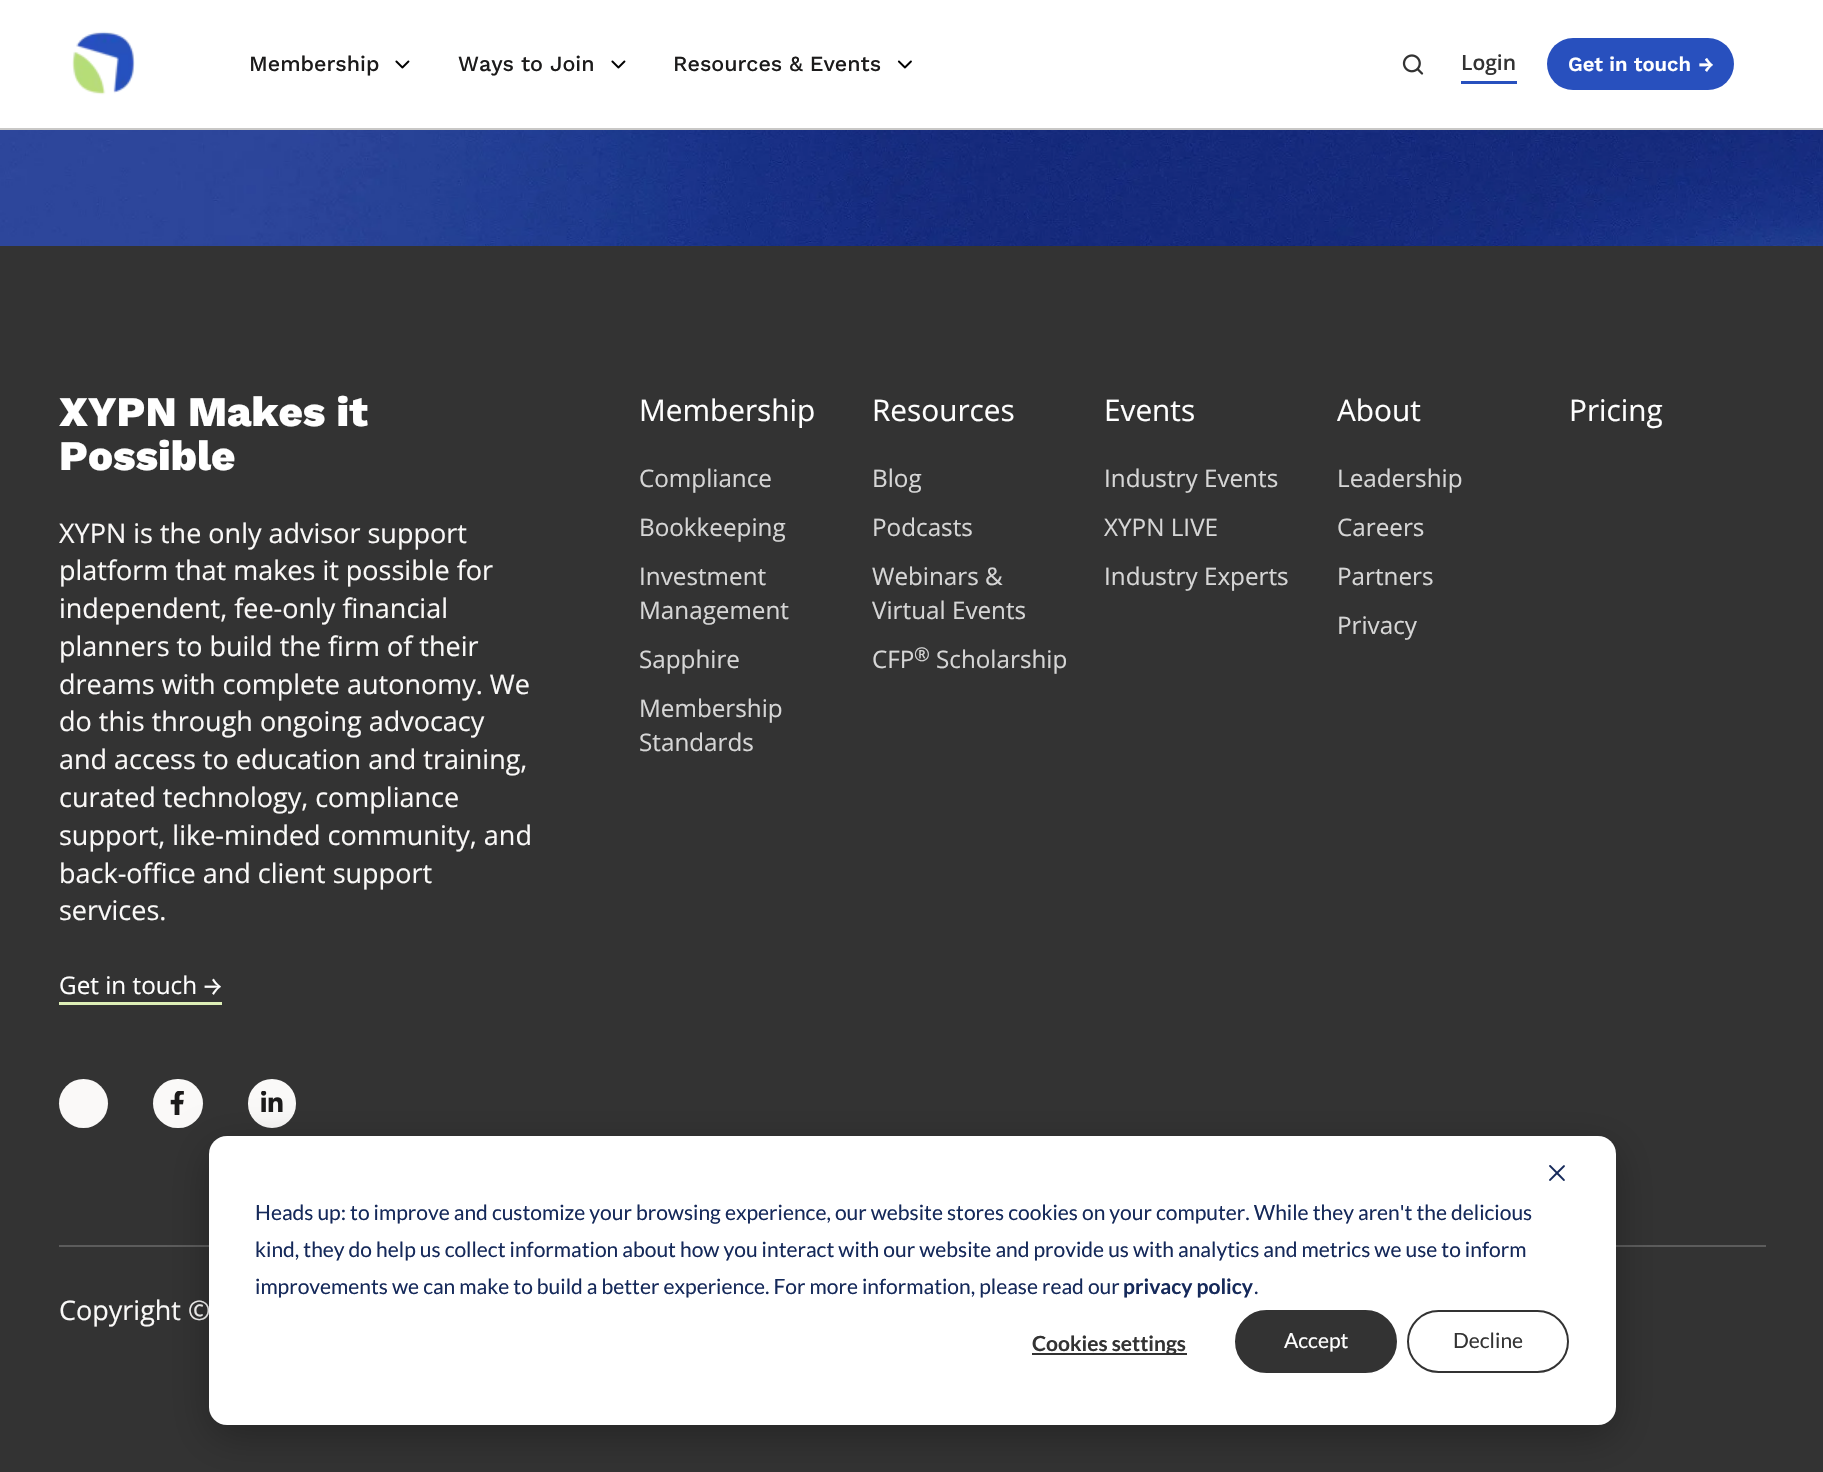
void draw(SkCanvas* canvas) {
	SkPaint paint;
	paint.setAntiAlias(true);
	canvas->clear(0xffffffff);
	paint.setColor(0xffc9c8c7);
	canvas->drawRect(SkRect::MakeXYWH(0, 128, 1823, 2), paint);
	canvas->drawImageRect(SkImages::DeferredFromEncodedData(SkData::MakeFromFileName("img1.png")), SkRect::MakeXYWH(72, 31, 63, 64), SkSamplingOptions());
	SkFont f1(fontMgr->matchFamilyStyle("Work Sans", SkFontStyle(500, SkFontStyle::kNormal_Width, SkFontStyle::kUpright_Slant)), 21.5);
	f1.setSubpixel(true);
	paint.setColor(0xff1c1b1b);
	canvas->drawString("Membership", 249, 71, f1, paint);
	canvas->drawImageRect(SkImages::DeferredFromEncodedData(SkData::MakeFromFileName("img2.png")), SkRect::MakeXYWH(395, 60, 15, 9), SkSamplingOptions());
	canvas->drawString("Ways to Join", 458, 71, f1, paint);
	canvas->drawImageRect(SkImages::DeferredFromEncodedData(SkData::MakeFromFileName("img2.png")), SkRect::MakeXYWH(611, 60, 15, 9), SkSamplingOptions());
	canvas->drawString("Resources & Events", 673, 71, f1, paint);
	canvas->drawImageRect(SkImages::DeferredFromEncodedData(SkData::MakeFromFileName("img3.png")), SkRect::MakeXYWH(897, 60, 15, 9), SkSamplingOptions());
	canvas->drawImageRect(SkImages::DeferredFromEncodedData(SkData::MakeFromFileName("img4.png")), SkRect::MakeXYWH(1402, 54, 22, 21), SkSamplingOptions());
	SkFont f2(fontMgr->matchFamilyStyle("Open Sans", SkFontStyle(600, SkFontStyle::kNormal_Width, SkFontStyle::kUpright_Slant)), 21);
	f2.setSubpixel(true);
	paint.setColor(0xff333333);
	canvas->drawString("Login", 1461, 70, f2, paint);
	paint.setColor(0xff2850be);
	canvas->drawRect(SkRect::MakeXYWH(1461, 81, 56, 3), paint);
	canvas->drawRoundRect(SkRect::MakeXYWH(1547, 38, 187, 52), 26, 26, paint);
	SkFont f3(fontMgr->matchFamilyStyle("Work Sans", SkFontStyle(600, SkFontStyle::kNormal_Width, SkFontStyle::kUpright_Slant)), 20.25);
	f3.setSubpixel(true);
	paint.setColor(0xffffffff);
	canvas->drawString("Get in touch", 1568, 71, f3, paint);
	SkFont f4(fontMgr->matchFamilyStyle("Work Sans", SkFontStyle(600, SkFontStyle::kNormal_Width, SkFontStyle::kItalic_Slant)), 20.25);
	f4.setSubpixel(true);
	canvas->drawString("→", 1698, 71, f4, paint);
	canvas->drawImageRect(SkImages::DeferredFromEncodedData(SkData::MakeFromFileName("img5.png")), SkRect::MakeXYWH(0, 130, 1823, 116), SkSamplingOptions());
	paint.setColor(0xff333333);
	canvas->drawRect(SkRect::MakeXYWH(0, 246, 1823, 1226), paint);
	SkFont f5(fontMgr->matchFamilyStyle("Work Sans", SkFontStyle(800, SkFontStyle::kNormal_Width, SkFontStyle::kUpright_Slant)), 42);
	f5.setSubpixel(true);
	paint.setColor(0xffffffff);
	canvas->drawString("XYPN Makes it", 59, 426, f5, paint);
	canvas->drawString("Possible", 59, 470, f5, paint);
	SkFont f6(fontMgr->matchFamilyStyle("Open Sans", SkFontStyle::Normal()), 27);
	f6.setSubpixel(true);
	paint.setColor(0xfffaf9f8);
	canvas->drawString("XYPN is the only advisor support", 59, 543, f6, paint);
	canvas->drawString("platform that makes it possible for", 59, 580, f6, paint);
	canvas->drawString("independent, fee-only financial", 59, 618, f6, paint);
	canvas->drawString("planners to build the firm of their", 59, 656, f6, paint);
	canvas->drawString("dreams with complete autonomy. We", 59, 694, f6, paint);
	canvas->drawString("do this through ongoing advocacy", 59, 731, f6, paint);
	canvas->drawString("and access to education and training,", 59, 769, f6, paint);
	canvas->drawString("curated technology, compliance", 59, 807, f6, paint);
	canvas->drawString("support, like-minded community, and", 59, 845, f6, paint);
	canvas->drawString("back-office and client support", 59, 883, f6, paint);
	canvas->drawString("services.", 59, 920, f6, paint);
	SkFont f7(fontMgr->matchFamilyStyle("Open Sans", SkFontStyle::Normal()), 24.25);
	f7.setSubpixel(true);
	paint.setColor(0xffffffff);
	canvas->drawString("Get in touch", 59, 994, f7, paint);
	SkFont f8(fontMgr->matchFamilyStyle("Work Sans", SkFontStyle::Italic()), 24.25);
	f8.setSubpixel(true);
	canvas->drawString("→", 203, 994, f8, paint);
	paint.setColor(0xffdeefb7);
	canvas->drawRect(SkRect::MakeXYWH(59, 1002, 163, 3), paint);
	paint.setColor(0xfffaf9f8);
	canvas->drawCircle(83.5, 1103.5, 24.5, paint);
	canvas->drawRoundRect(SkRect::MakeXYWH(153, 1079, 50, 49), 24.5, 24.5, paint);
	canvas->drawImageRect(SkImages::DeferredFromEncodedData(SkData::MakeFromFileName("img6.png")), SkRect::MakeXYWH(170, 1091, 14, 24), SkSamplingOptions());
	canvas->drawRoundRect(SkRect::MakeXYWH(248, 1079, 48, 49), 24, 24, paint);
	canvas->drawImageRect(SkImages::DeferredFromEncodedData(SkData::MakeFromFileName("img7.png")), SkRect::MakeXYWH(261, 1091, 22, 21), SkSamplingOptions());
	SkFont f9(fontMgr->matchFamilyStyle("Open Sans", SkFontStyle::Normal()), 29.75);
	f9.setSubpixel(true);
	paint.setColor(0xffffffff);
	canvas->drawString("Membership", 639, 421, f9, paint);
	paint.setColor(0xffd6d6d6);
	canvas->drawString("Compliance", 639, 487, f7, paint);
	canvas->drawString("Bookkeeping", 639, 536, f7, paint);
	canvas->drawString("Investment", 639, 585, f7, paint);
	canvas->drawString("Management", 639, 619, f7, paint);
	canvas->drawString("Sapphire", 639, 668, f7, paint);
	canvas->drawString("Membership", 639, 717, f7, paint);
	canvas->drawString("Standards", 639, 751, f7, paint);
	paint.setColor(0xffffffff);
	canvas->drawString("Resources", 872, 421, f9, paint);
	paint.setColor(0xffd6d6d6);
	canvas->drawString("Blog", 872, 487, f7, paint);
	canvas->drawString("Podcasts", 872, 536, f7, paint);
	canvas->drawString("Webinars &", 872, 585, f7, paint);
	canvas->drawString("Virtual Events", 872, 619, f7, paint);
	canvas->drawString("CFP", 872, 668, f7, paint);
	SkFont f10(fontMgr->matchFamilyStyle("Open Sans", SkFontStyle::Normal()), 19);
	f10.setSubpixel(true);
	canvas->drawString("®", 914, 661, f10, paint);
	canvas->drawString("Scholarship", 936, 668, f7, paint);
	paint.setColor(0xffffffff);
	canvas->drawString("Events", 1104, 421, f9, paint);
	paint.setColor(0xffd6d6d6);
	canvas->drawString("Industry Events", 1104, 487, f7, paint);
	canvas->drawString("XYPN LIVE", 1104, 536, f7, paint);
	canvas->drawString("Industry Experts", 1104, 585, f7, paint);
	paint.setColor(0xffffffff);
	canvas->drawString("About", 1337, 421, f9, paint);
	paint.setColor(0xffd6d6d6);
	canvas->drawString("Leadership", 1337, 487, f7, paint);
	canvas->drawString("Careers", 1337, 536, f7, paint);
	canvas->drawString("Partners", 1337, 585, f7, paint);
	canvas->drawString("Privacy", 1337, 634, f7, paint);
	paint.setColor(0xffffffff);
	canvas->drawString("Pricing", 1569, 421, f9, paint);
	paint.setColor(0xff5c5c5c);
	canvas->drawRect(SkRect::MakeXYWH(59, 1245, 1707, 2), paint);
	paint.setColor(0xfffaf9f8);
	canvas->drawString("Copyright ©", 59, 1320, f6, paint);
	paint.setColor(0x47000000);
	paint.setMaskFilter(SkMaskFilter::MakeBlur(kNormal_SkBlurStyle, 21));
	canvas->drawRoundRect(SkRect::MakeXYWH(209, 1148, 1407, 289), 18, 18, paint);
	paint.setMaskFilter(nullptr);
	paint.setColor(0xffffffff);
	canvas->drawRoundRect(SkRect::MakeXYWH(209, 1136, 1407, 289), 18, 18, paint);
	canvas->drawImageRect(SkImages::DeferredFromEncodedData(SkData::MakeFromFileName("img8.png")), SkRect::MakeXYWH(1549, 1165, 16, 16), SkSamplingOptions());
	SkFont f11(fontMgr->matchFamilyStyle("Lato", SkFontStyle::Normal()), 21);
	f11.setSubpixel(true);
	paint.setColor(0xff15295a);
	canvas->drawString("Heads up: to improve and customize your browsing experience, our website stores cookies on your computer. While they aren't the delicious", 255, 1220, f11, paint);
	canvas->drawString("kind, they do help us collect information about how you interact with our website and provide us with analytics and metrics we use to inform", 255, 1257, f11, paint);
	canvas->drawString("improvements we can make to build a better experience. For more information, please read our", 255, 1294, f11, paint);
	SkFont f12(fontMgr->matchFamilyStyle("Lato", SkFontStyle::Bold()), 21);
	f12.setSubpixel(true);
	canvas->drawString("privacy policy", 1123, 1294, f12, paint);
	canvas->drawString(".", 1254, 1294, f11, paint);
	paint.setColor(0xff333333);
	canvas->drawRect(SkRect::MakeXYWH(1032, 1353, 155, 2), paint);
	canvas->drawString("Cookies settings", 1032, 1351, f12, paint);
	canvas->drawRoundRect(SkRect::MakeXYWH(1236, 1311, 160, 61), 30.5, 30.5, paint);
	paint.setStroke(true);
	paint.setStrokeWidth(2);
	canvas->drawRoundRect(SkRect::MakeXYWH(1236, 1311, 160, 61), 30.5, 30.5, paint);
	paint.setStroke(false);
	paint.setColor(0xffffffff);
	canvas->drawString("Accept", 1284, 1348, f11, paint);
	paint.setStroke(true);
	paint.setColor(0xff333333);
	canvas->drawRoundRect(SkRect::MakeXYWH(1408, 1311, 160, 61), 30.5, 30.5, paint);
	paint.setStroke(false);
	canvas->drawString("Decline", 1453, 1348, f11, paint);
}
